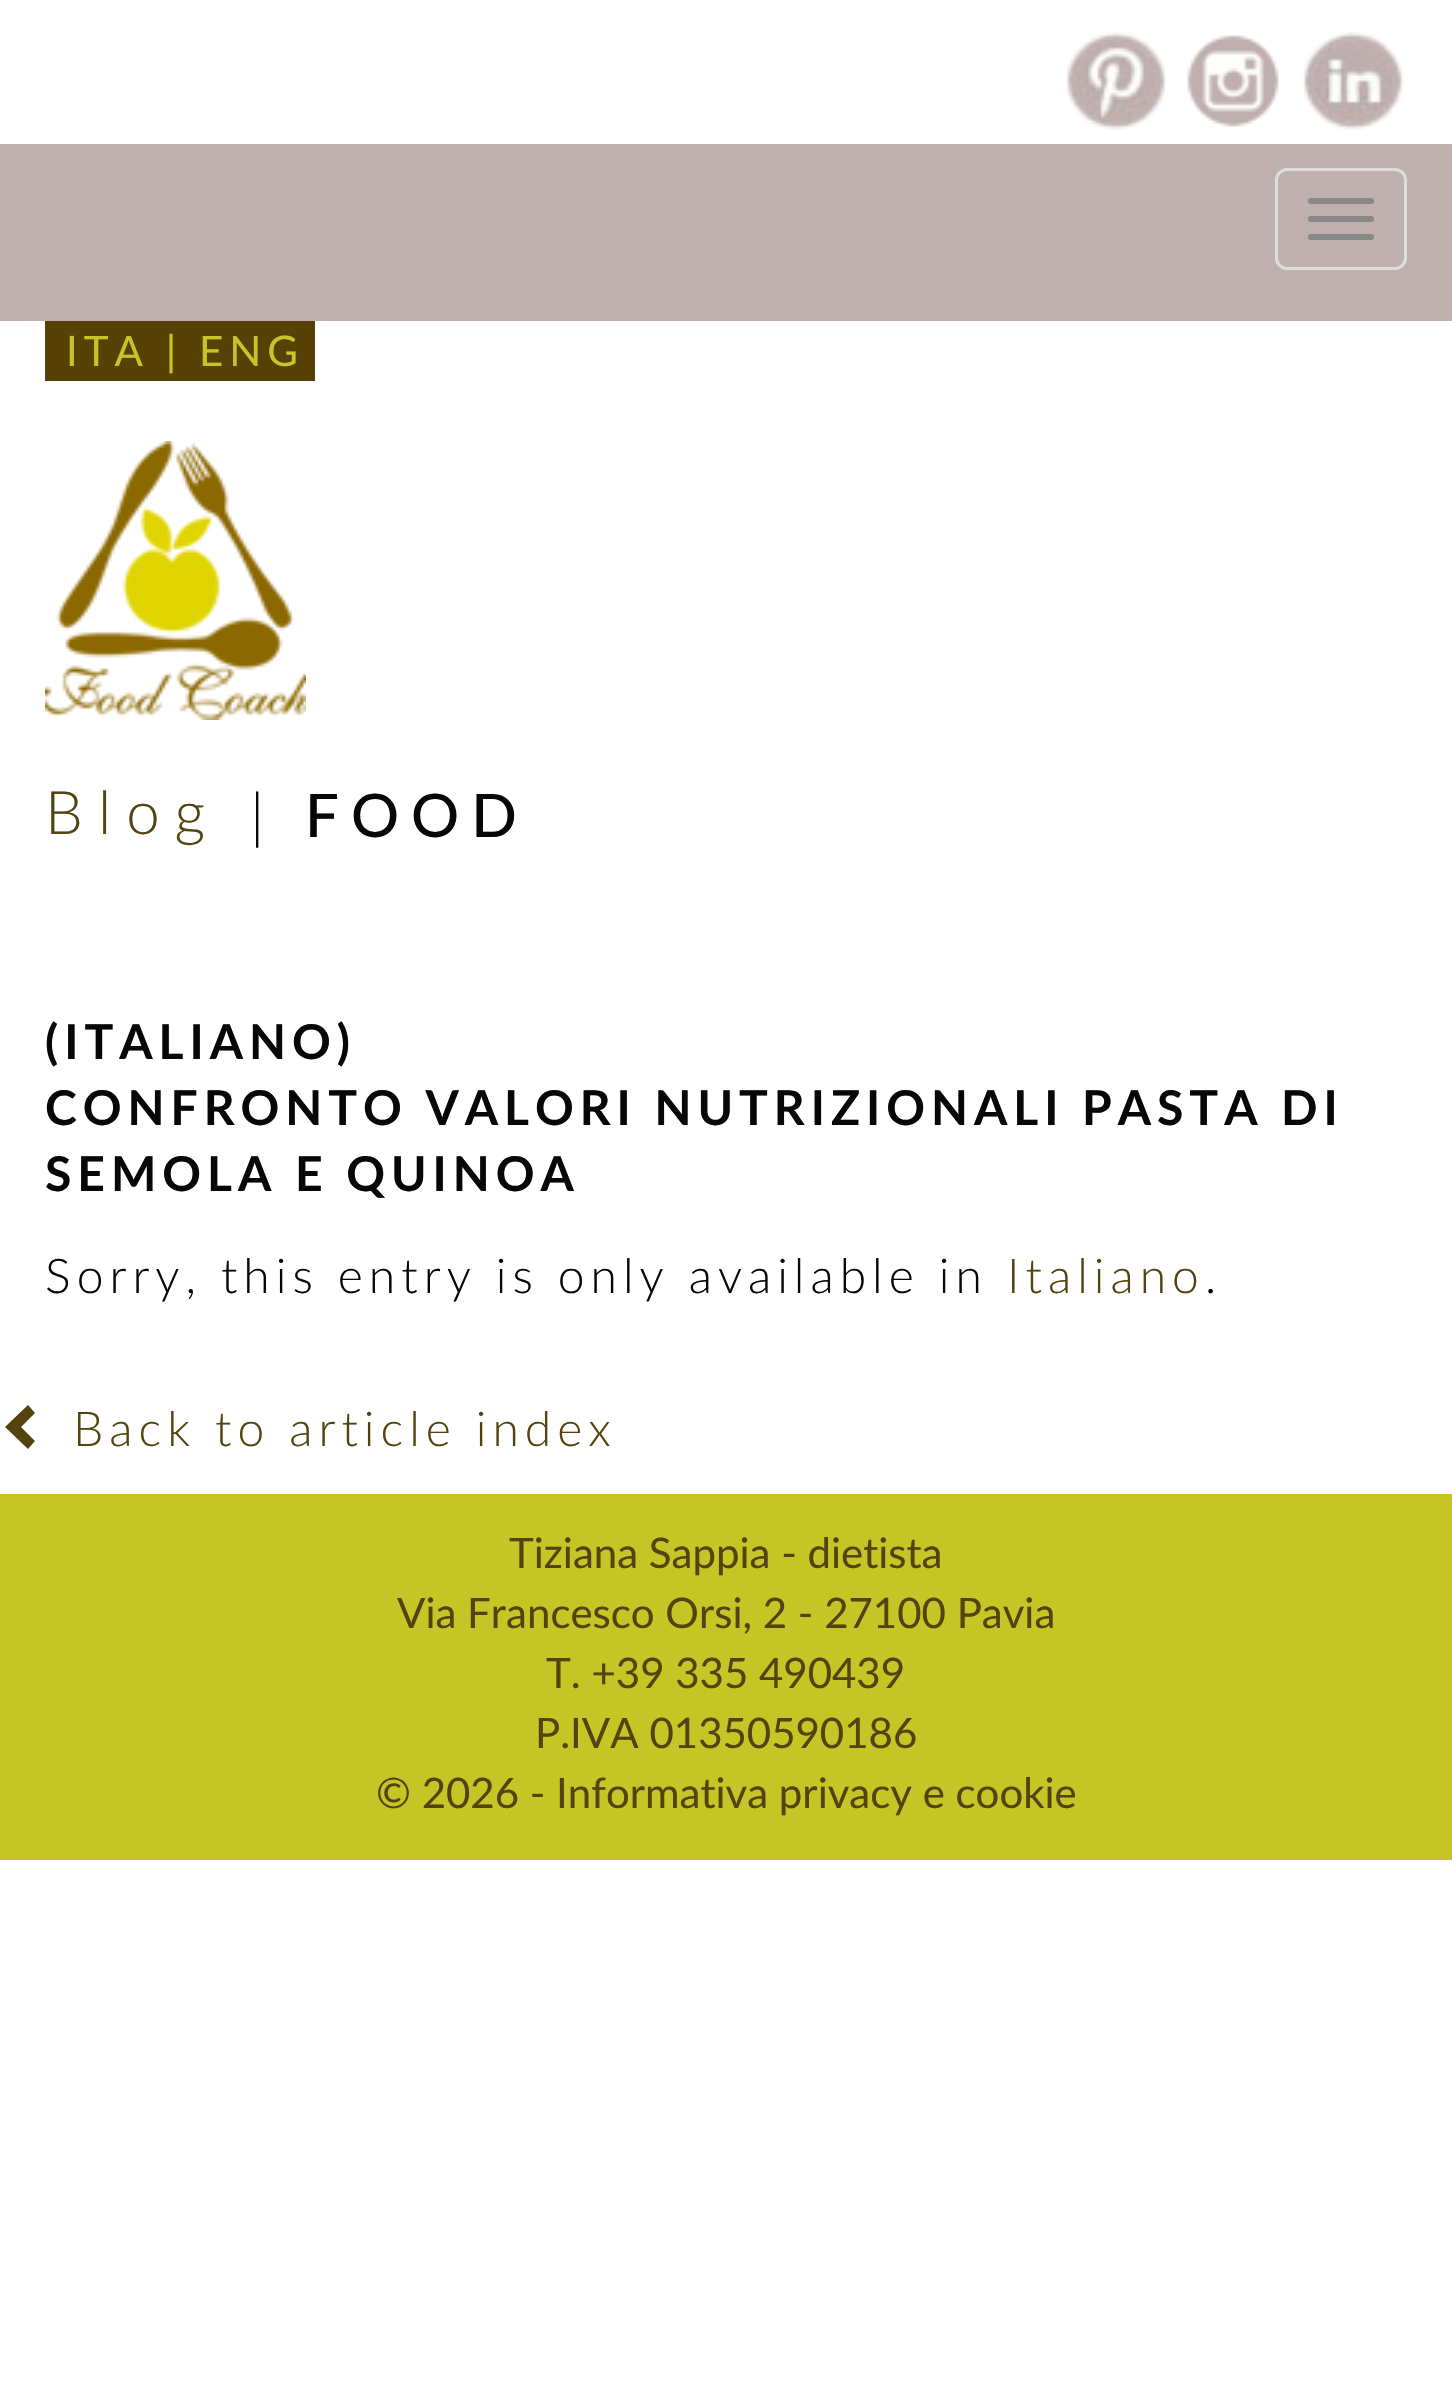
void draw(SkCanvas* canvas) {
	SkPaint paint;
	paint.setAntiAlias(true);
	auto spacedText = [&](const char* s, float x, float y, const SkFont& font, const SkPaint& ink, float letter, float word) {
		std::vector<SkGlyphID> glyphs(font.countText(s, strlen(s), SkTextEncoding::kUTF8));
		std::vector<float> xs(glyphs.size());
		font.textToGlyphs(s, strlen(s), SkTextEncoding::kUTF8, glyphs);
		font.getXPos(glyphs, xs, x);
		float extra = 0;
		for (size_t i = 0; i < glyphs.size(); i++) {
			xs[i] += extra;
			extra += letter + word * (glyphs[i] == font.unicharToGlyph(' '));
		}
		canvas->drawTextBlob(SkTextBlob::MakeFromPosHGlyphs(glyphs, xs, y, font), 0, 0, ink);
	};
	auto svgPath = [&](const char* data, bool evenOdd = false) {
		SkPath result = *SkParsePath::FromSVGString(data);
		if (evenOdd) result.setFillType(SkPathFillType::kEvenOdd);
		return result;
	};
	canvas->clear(0xffffffff);
	canvas->drawImageRect(SkImages::DeferredFromEncodedData(SkData::MakeFromFileName("img1.png")), SkRect::MakeXYWH(1065, 32, 102, 98), SkSamplingOptions());
	canvas->drawImageRect(SkImages::DeferredFromEncodedData(SkData::MakeFromFileName("img2.png")), SkRect::MakeXYWH(1187, 35, 92, 92), SkSamplingOptions());
	canvas->drawImageRect(SkImages::DeferredFromEncodedData(SkData::MakeFromFileName("img3.png")), SkRect::MakeXYWH(1302, 32, 103, 98), SkSamplingOptions());
	paint.setColor(0xffbfafaf);
	canvas->drawRect(SkRect::MakeXYWH(0, 144, 1452, 177), paint);
	paint.setStroke(true);
	paint.setStrokeWidth(3);
	paint.setColor(0xffdddddd);
	canvas->drawRoundRect(SkRect::MakeXYWH(1276.5, 169.5, 129, 99), 10.5, 10.5, paint);
	paint.setStroke(false);
	paint.setColor(0xff888888);
	canvas->drawRoundRect(SkRect::MakeXYWH(1308, 198, 66, 6), 3, 3, paint);
	canvas->drawRoundRect(SkRect::MakeXYWH(1308, 216, 66, 6), 3, 3, paint);
	canvas->drawRoundRect(SkRect::MakeXYWH(1308, 234, 66, 6), 3, 3, paint);
	paint.setColor(0xff574105);
	canvas->drawRect(SkRect::MakeXYWH(45, 321, 270, 60), paint);
	SkFont f1(fontMgr->matchFamilyStyle("Lato", SkFontStyle::Normal()), 42);
	f1.setSubpixel(true);
	paint.setColor(0xffc7c525);
	spacedText("ITA | ENG", 66, 366, f1, paint, 6, 0);
	canvas->drawImageRect(SkImages::DeferredFromEncodedData(SkData::MakeFromFileName("img4.png")), SkRect::MakeXYWH(45, 441, 261, 279), SkSamplingOptions());
	SkFont f2(fontMgr->matchFamilyStyle("Lato", SkFontStyle(300, SkFontStyle::kNormal_Width, SkFontStyle::kUpright_Slant)), 60);
	f2.setSubpixel(true);
	paint.setColor(0xff53430f);
	spacedText("Blog", 45, 834, f2, paint, 15, 0);
	paint.setColor(0xff070707);
	spacedText("|", 250, 837, f2, paint, 12, 0);
	SkFont f3(fontMgr->matchFamilyStyle("Lato", SkFontStyle(500, SkFontStyle::kNormal_Width, SkFontStyle::kUpright_Slant)), 60);
	f3.setSubpixel(true);
	spacedText("FOOD", 305, 837, f3, paint, 12, 0);
	SkFont f4(fontMgr->matchFamilyStyle("Lato", SkFontStyle::Bold()), 48);
	f4.setSubpixel(true);
	spacedText("(ITALIANO)", 45, 1059, f4, paint, 6, 0);
	spacedText("CONFRONTO VALORI NUTRIZIONALI PASTA DI", 45, 1125, f4, paint, 6, 0);
	spacedText("SEMOLA E QUINOA", 45, 1191, f4, paint, 6, 0);
	SkFont f5(fontMgr->matchFamilyStyle("Lato", SkFontStyle(300, SkFontStyle::kNormal_Width, SkFontStyle::kUpright_Slant)), 48);
	f5.setSubpixel(true);
	spacedText("Sorry, this entry is only available in", 45, 1293, f5, paint, 6, 0);
	paint.setColor(0xff53430f);
	spacedText("Italiano", 1007, 1293, f5, paint, 6, 0);
	paint.setColor(0xff070707);
	spacedText(".", 1205, 1293, f5, paint, 6, 0);
	paint.setColor(0xff53430f);
	canvas->drawPath(svgPath("M35 1413L21 1427L35 1441L28 1449L5 1427L28 1405Z"), paint);
	spacedText("Back to article index", 73, 1446, f5, paint, 6, 0);
	paint.setColor(0xffc7c525);
	canvas->drawRect(SkRect::MakeXYWH(0, 1494, 1452, 366), paint);
	paint.setColor(0xff53430f);
	canvas->drawString("Tiziana Sappia - dietista", 509, 1568, f1, paint);
	canvas->drawString("Via Francesco Orsi, 2 - 27100 Pavia", 397, 1628, f1, paint);
	canvas->drawString("T. +39 335 490439", 546, 1688, f1, paint);
	canvas->drawString("P.IVA 01350590186", 535, 1748, f1, paint);
	canvas->drawString("© 2026 - Informativa privacy e cookie", 376, 1808, f1, paint);
}
